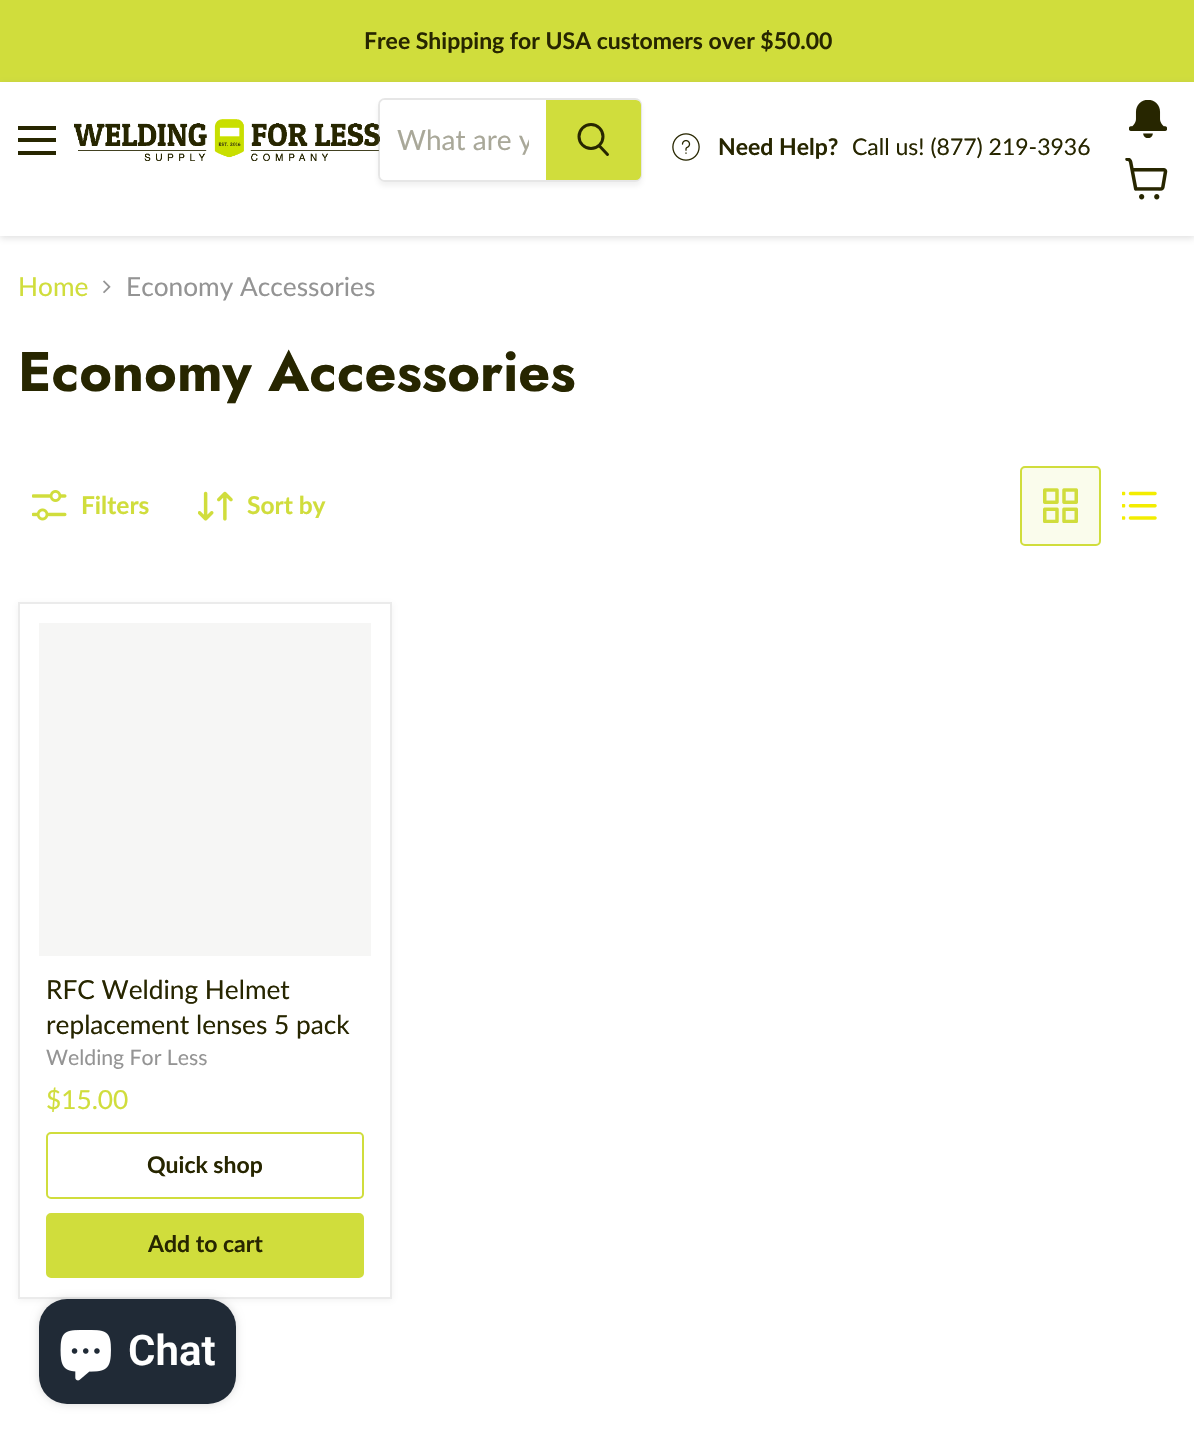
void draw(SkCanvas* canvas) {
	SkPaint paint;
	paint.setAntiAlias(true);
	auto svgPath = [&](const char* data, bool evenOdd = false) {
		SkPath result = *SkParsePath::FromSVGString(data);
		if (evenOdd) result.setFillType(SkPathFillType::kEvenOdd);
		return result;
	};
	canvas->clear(0xffffffff);
	paint.setColor(0xffd0dd3c);
	canvas->drawRect(SkRect::MakeXYWH(0, 0, 1194, 82), paint);
	SkFont f1(fontMgr->matchFamilyStyle("Lato", SkFontStyle::Bold()), 23);
	f1.setSubpixel(true);
	paint.setColor(0xff272600);
	canvas->drawString("Free Shipping for USA customers over $50.00", 364, 49, f1, paint);
	paint.setColor(0x40808080);
	paint.setMaskFilter(SkMaskFilter::MakeBlur(kNormal_SkBlurStyle, 3.5));
	canvas->drawRect(SkRect::MakeXYWH(0, 84, 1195, 154), paint);
	paint.setMaskFilter(nullptr);
	paint.setColor(0xffffffff);
	canvas->drawRect(SkRect::MakeXYWH(0, 82, 1194, 154), paint);
	paint.setColor(0xff272600);
	canvas->drawRect(SkRect::MakeXYWH(18, 126, 38, 4), paint);
	canvas->drawRect(SkRect::MakeXYWH(18, 138, 38, 4), paint);
	canvas->drawRect(SkRect::MakeXYWH(18, 151, 38, 4), paint);
	canvas->drawImageRect(SkImages::DeferredFromEncodedData(SkData::MakeFromFileName("img1.png")), SkRect::MakeXYWH(74, 119, 306, 42), SkSamplingOptions());
	canvas->save();
	canvas->clipPath(svgPath("M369 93H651V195H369ZM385 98H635C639 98 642 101 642 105V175C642 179 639 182 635 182H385C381 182 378 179 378 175V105C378 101 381 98 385 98Z", true), true);
	paint.setColor(0x1c808080);
	paint.setMaskFilter(SkMaskFilter::MakeBlur(kNormal_SkBlurStyle, 2.5));
	canvas->drawRoundRect(SkRect::MakeXYWH(378, 102, 264, 84), 7, 7, paint);
	paint.setMaskFilter(nullptr);
	canvas->restore();
	paint.setStroke(true);
	paint.setStrokeWidth(2);
	paint.setColor(0x33808080);
	canvas->drawRoundRect(SkRect::MakeXYWH(379, 99, 262, 82), 6, 6, paint);
	paint.setStroke(false);
	paint.setColor(0xffffffff);
	canvas->drawPath(svgPath("M385 100H546V180H385C382 180 380 178 380 175V105C380 102 382 100 385 100Z"), paint);
	canvas->save();
	canvas->clipRect(SkRect::MakeXYWH(397, 123, 132, 33));
	SkFont f2(fontMgr->matchFamilyStyle("Lato", SkFontStyle::Normal()), 28);
	f2.setSubpixel(true);
	paint.setColor(0xffa9a899);
	canvas->drawString("What are y", 397, 150, f2, paint);
	canvas->restore();
	paint.setColor(0xffd0dd3c);
	canvas->drawPath(svgPath("M547 101H636C638 101 640 103 640 105V175C640 177 638 179 636 179H547Z"), paint);
	paint.setStroke(true);
	canvas->drawPath(svgPath("M547 101H636C638 101 640 103 640 105V175C640 177 638 179 636 179H547Z"), paint);
	paint.setStrokeWidth(3);
	paint.setStrokeCap(SkPaint::kRound_Cap);
	paint.setColor(0xff272600);
	canvas->drawPath(svgPath("M607.5 154.5L599.5 146"), paint);
	paint.setStrokeCap(SkPaint::kButt_Cap);
	canvas->drawCircle(591, 136.5, 12, paint);
	canvas->drawImageRect(SkImages::DeferredFromEncodedData(SkData::MakeFromFileName("img2.png")), SkRect::MakeXYWH(672, 133, 28, 28), SkSamplingOptions());
	paint.setStroke(false);
	canvas->drawString("Need Help?", 718, 155, f1, paint);
	SkFont f3(fontMgr->matchFamilyStyle("Lato", SkFontStyle::Normal()), 23);
	f3.setSubpixel(true);
	canvas->drawString("Call us! (877) 219-3936", 852, 155, f3, paint);
	canvas->drawImageRect(SkImages::DeferredFromEncodedData(SkData::MakeFromFileName("img3.png")), SkRect::MakeXYWH(1129, 100, 38, 38), SkSamplingOptions());
	canvas->drawImageRect(SkImages::DeferredFromEncodedData(SkData::MakeFromFileName("img4.png")), SkRect::MakeXYWH(1125, 158, 43, 42), SkSamplingOptions());
	SkFont f4(fontMgr->matchFamilyStyle("Lato", SkFontStyle::Normal()), 26.25);
	f4.setSubpixel(true);
	paint.setColor(0xffd0dd3c);
	canvas->drawString("Home", 18, 296, f4, paint);
	canvas->drawImageRect(SkImages::DeferredFromEncodedData(SkData::MakeFromFileName("img5.png")), SkRect::MakeXYWH(103, 280, 8, 14), SkSamplingOptions());
	paint.setColor(0xff949494);
	canvas->drawString("Economy Accessories", 126, 296, f4, paint);
	SkFont f5(fontMgr->matchFamilyStyle("Jost", SkFontStyle::Bold()), 55.75);
	f5.setSubpixel(true);
	paint.setColor(0xff272600);
	canvas->drawString("Economy Accessories", 18, 391, f5, paint);
	canvas->drawImageRect(SkImages::DeferredFromEncodedData(SkData::MakeFromFileName("img6.png")), SkRect::MakeXYWH(32, 490, 35, 31), SkSamplingOptions());
	SkFont f6(fontMgr->matchFamilyStyle("Lato", SkFontStyle::Bold()), 24.5);
	f6.setSubpixel(true);
	paint.setColor(0xffd0dd3c);
	canvas->drawString("Filters", 81, 514, f6, paint);
	canvas->drawImageRect(SkImages::DeferredFromEncodedData(SkData::MakeFromFileName("img7.png")), SkRect::MakeXYWH(198, 491, 35, 30), SkSamplingOptions());
	canvas->drawString("Sort by", 247, 514, f6, paint);
	paint.setColor(0xfffafcec);
	canvas->drawRoundRect(SkRect::MakeXYWH(1021, 467, 79, 78), 4, 4, paint);
	paint.setStroke(true);
	paint.setStrokeWidth(2);
	paint.setColor(0xffd0dd3c);
	canvas->drawRoundRect(SkRect::MakeXYWH(1021, 467, 79, 78), 4, 4, paint);
	canvas->drawImageRect(SkImages::DeferredFromEncodedData(SkData::MakeFromFileName("img8.png")), SkRect::MakeXYWH(1043, 488, 35, 35), SkSamplingOptions());
	canvas->drawImageRect(SkImages::DeferredFromEncodedData(SkData::MakeFromFileName("img9.png")), SkRect::MakeXYWH(1122, 491, 35, 29), SkSamplingOptions());
	paint.setStroke(false);
	paint.setColor(0x1c808080);
	paint.setMaskFilter(SkMaskFilter::MakeBlur(kNormal_SkBlurStyle, 3.5));
	canvas->drawRect(SkRect::MakeXYWH(18, 604, 374, 696), paint);
	paint.setMaskFilter(nullptr);
	paint.setColor(0xffffffff);
	canvas->drawRect(SkRect::MakeXYWH(19, 603, 372, 695), paint);
	paint.setStroke(true);
	paint.setColor(0xffebebeb);
	canvas->drawRect(SkRect::MakeXYWH(19, 603, 372, 695), paint);
	paint.setStroke(false);
	paint.setColor(0xfff6f6f5);
	canvas->drawRect(SkRect::MakeXYWH(39, 623, 332, 333), paint);
	paint.setColor(0xff272600);
	canvas->drawString("RFC Welding Helmet", 46, 999, f4, paint);
	canvas->drawString("replacement lenses 5 pack", 46, 1034, f4, paint);
	SkFont f7(fontMgr->matchFamilyStyle("Lato", SkFontStyle::Normal()), 21.25);
	f7.setSubpixel(true);
	paint.setColor(0xff949494);
	canvas->drawString("Welding For Less", 46, 1065, f7, paint);
	paint.setColor(0xffd0dd3c);
	canvas->drawString("$15.00", 46, 1109, f4, paint);
	paint.setStroke(true);
	canvas->drawRoundRect(SkRect::MakeXYWH(47, 1133, 316, 65), 4, 4, paint);
	paint.setStroke(false);
	paint.setColor(0xff272600);
	canvas->drawString("Quick shop", 147, 1173, f1, paint);
	paint.setColor(0xffd0dd3c);
	canvas->drawRoundRect(SkRect::MakeXYWH(47, 1214, 316, 63), 4, 4, paint);
	paint.setStroke(true);
	canvas->drawRoundRect(SkRect::MakeXYWH(47, 1214, 316, 63), 4, 4, paint);
	paint.setStroke(false);
	paint.setColor(0xff272600);
	canvas->drawString("Add to cart", 148, 1252, f1, paint);
	paint.setColor(0x26000000);
	paint.setMaskFilter(SkMaskFilter::MakeBlur(kNormal_SkBlurStyle, 4.5));
	canvas->drawRoundRect(SkRect::MakeXYWH(39, 1299, 197, 105), 28, 28, paint);
	paint.setMaskFilter(nullptr);
	paint.setColor(0xff202a36);
	canvas->drawRoundRect(SkRect::MakeXYWH(39, 1299, 197, 105), 28, 28, paint);
	canvas->drawImageRect(SkImages::DeferredFromEncodedData(SkData::MakeFromFileName("img10.png")), SkRect::MakeXYWH(60, 1330, 51, 51), SkSamplingOptions());
	SkFont f8(fontMgr->matchFamilyStyle("Roboto", SkFontStyle(600, SkFontStyle::kNormal_Width, SkFontStyle::kUpright_Slant)), 42);
	f8.setSubpixel(true);
	paint.setColor(0xffffffff);
	canvas->drawString("Chat", 128, 1365, f8, paint);
}
